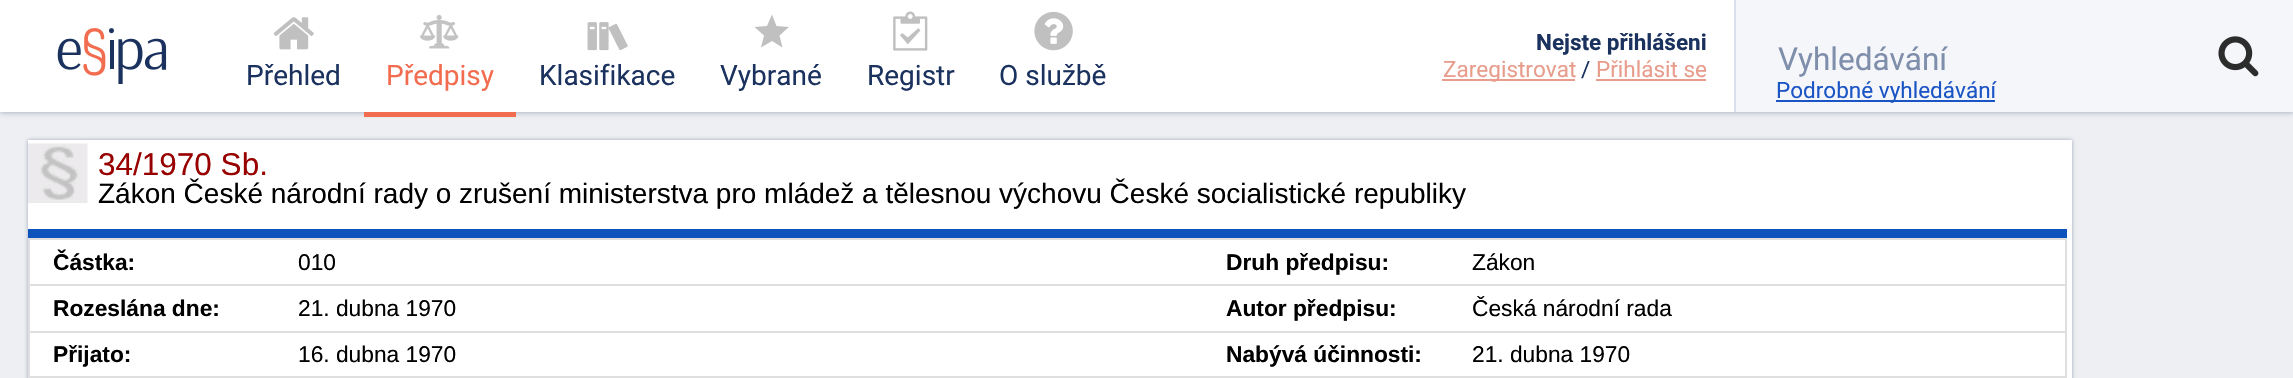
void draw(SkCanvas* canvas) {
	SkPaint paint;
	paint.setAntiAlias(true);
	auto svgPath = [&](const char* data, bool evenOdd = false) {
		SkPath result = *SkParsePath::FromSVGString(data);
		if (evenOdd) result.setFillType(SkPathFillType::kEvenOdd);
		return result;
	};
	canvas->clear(0xffedeff2);
	paint.setColor(0x661b325f);
	paint.setMaskFilter(SkMaskFilter::MakeBlur(kNormal_SkBlurStyle, 3));
	canvas->drawRect(SkRect::MakeXYWH(0, 0, 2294, 112), paint);
	paint.setMaskFilter(nullptr);
	paint.setColor(0xffffffff);
	canvas->drawRect(SkRect::MakeXYWH(0, 0, 1734, 112), paint);
	canvas->drawImageRect(SkImages::DeferredFromEncodedData(SkData::MakeFromFileName("img1.png")), SkRect::MakeXYWH(57, 28, 110, 56), SkSamplingOptions());
	canvas->drawImageRect(SkImages::DeferredFromEncodedData(SkData::MakeFromFileName("img2.png")), SkRect::MakeXYWH(273, 17, 41, 33), SkSamplingOptions());
	SkFont f1(fontMgr->matchFamilyStyle("Roboto", SkFontStyle::Normal()), 28);
	f1.setSubpixel(true);
	paint.setColor(0xff1b325f);
	canvas->drawString("Přehled", 246, 85, f1, paint);
	paint.setColor(0xfff26c4f);
	canvas->drawRect(SkRect::MakeXYWH(364, 112, 152, 5), paint);
	canvas->drawImageRect(SkImages::DeferredFromEncodedData(SkData::MakeFromFileName("img3.png")), SkRect::MakeXYWH(420, 15, 39, 34), SkSamplingOptions());
	canvas->drawString("Předpisy", 386, 85, f1, paint);
	canvas->drawImageRect(SkImages::DeferredFromEncodedData(SkData::MakeFromFileName("img4.png")), SkRect::MakeXYWH(587, 22, 41, 29), SkSamplingOptions());
	paint.setColor(0xff1b325f);
	canvas->drawString("Klasifikace", 539, 85, f1, paint);
	paint.setColor(0xffc0c0c0);
	canvas->drawPath(svgPath("M772 41L761 47.5L764 35.5L754.5 27L767 26L772 14.5L776.5 26L789 27L779.5 35.5L782.5 47.5Z"), paint);
	paint.setColor(0xff1b325f);
	canvas->drawString("Vybrané", 720, 85, f1, paint);
	canvas->drawImageRect(SkImages::DeferredFromEncodedData(SkData::MakeFromFileName("img5.png")), SkRect::MakeXYWH(893, 11, 35, 40), SkSamplingOptions());
	canvas->drawString("Registr", 867, 85, f1, paint);
	canvas->drawImageRect(SkImages::DeferredFromEncodedData(SkData::MakeFromFileName("img6.png")), SkRect::MakeXYWH(1034, 11, 39, 40), SkSamplingOptions());
	canvas->drawString("O službě", 999, 85, f1, paint);
	SkFont f2(fontMgr->matchFamilyStyle("Roboto", SkFontStyle::Bold()), 22.5);
	f2.setSubpixel(true);
	canvas->drawString("Nejste přihlášeni", 1536, 50, f2, paint);
	paint.setColor(0xffe89d8c);
	canvas->drawRect(SkRect::MakeXYWH(1442, 79, 133, 2), paint);
	SkFont f3(fontMgr->matchFamilyStyle("Roboto", SkFontStyle::Normal()), 22.5);
	f3.setSubpixel(true);
	canvas->drawString("Zaregistrovat", 1443, 77, f3, paint);
	paint.setColor(0xff1b325f);
	canvas->drawString("/", 1581, 77, f3, paint);
	paint.setColor(0xffe89d8c);
	canvas->drawString("Přihlásit se", 1596, 77, f3, paint);
	canvas->drawRect(SkRect::MakeXYWH(1596, 79, 110, 2), paint);
	paint.setColor(0xffd9dfed);
	canvas->drawRect(SkRect::MakeXYWH(1734, 0, 2, 112), paint);
	paint.setColor(0xfff4f6fa);
	canvas->drawRect(SkRect::MakeXYWH(1736, 0, 557, 112), paint);
	SkFont f4(fontMgr->matchFamilyStyle("Roboto", SkFontStyle::Normal()), 31.5);
	f4.setSubpixel(true);
	paint.setColor(0xff7e8eab);
	canvas->drawString("Vyhledávání", 1778, 70, f4, paint);
	canvas->drawImageRect(SkImages::DeferredFromEncodedData(SkData::MakeFromFileName("img7.png")), SkRect::MakeXYWH(2218, 36, 41, 41), SkSamplingOptions());
	paint.setColor(0xff1b55c5);
	canvas->drawRect(SkRect::MakeXYWH(1776, 100, 219, 2), paint);
	canvas->drawString("Podrobné vyhledávání", 1776, 98, f3, paint);
	paint.setColor(0x661b325f);
	paint.setMaskFilter(SkMaskFilter::MakeBlur(kNormal_SkBlurStyle, 2));
	canvas->drawRect(SkRect::MakeXYWH(28, 140, 2044, 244), paint);
	paint.setMaskFilter(nullptr);
	paint.setColor(0xffffffff);
	canvas->drawRect(SkRect::MakeXYWH(28, 140, 2044, 238), paint);
	canvas->drawImageRect(SkImages::DeferredFromEncodedData(SkData::MakeFromFileName("img8.png")), SkRect::MakeXYWH(28, 143, 60, 60), SkSamplingOptions());
	paint.setColor(0xff0e53bb);
	canvas->drawRect(SkRect::MakeXYWH(28, 229, 2039, 9), paint);
	SkFont f5(fontMgr->matchFamilyStyle("Liberation Sans", SkFontStyle::Normal()), 31.5);
	f5.setSubpixel(true);
	paint.setColor(0xff980000);
	canvas->drawString("34/1970 Sb.", 98, 175, f5, paint);
	SkFont f6(fontMgr->matchFamilyStyle("Liberation Sans", SkFontStyle::Normal()), 28);
	f6.setSubpixel(true);
	paint.setColor(0xff000000);
	canvas->drawString("Zákon České národní rady o zrušení ministerstva pro mládež a tělesnou výchovu České socialistické republiky", 98, 203, f6, paint);
	paint.setColor(0xffdfdfdf);
	canvas->drawRect(SkRect::MakeXYWH(28, 238, 2039, 2), paint);
	canvas->drawRect(SkRect::MakeXYWH(2065, 238, 2, 140), paint);
	canvas->drawRect(SkRect::MakeXYWH(28, 238, 2, 140), paint);
	SkFont f7(fontMgr->matchFamilyStyle("Liberation Sans", SkFontStyle::Bold()), 22.75);
	f7.setSubpixel(true);
	paint.setColor(0xff000000);
	canvas->drawString("Částka:", 53, 270, f7, paint);
	SkFont f8(fontMgr->matchFamilyStyle("Liberation Sans", SkFontStyle::Normal()), 22.75);
	f8.setSubpixel(true);
	canvas->drawString("010", 298, 270, f8, paint);
	canvas->drawString("Druh předpisu:", 1226, 270, f7, paint);
	paint.setColor(0xffdfdfdf);
	canvas->drawRect(SkRect::MakeXYWH(28, 284, 2039, 2), paint);
	paint.setColor(0xff000000);
	canvas->drawString("Zákon", 1472, 270, f8, paint);
	canvas->drawString("Rozeslána dne:", 53, 316, f7, paint);
	canvas->drawString("21. dubna 1970", 298, 316, f8, paint);
	canvas->drawString("Autor předpisu:", 1226, 316, f7, paint);
	paint.setColor(0xffdfdfdf);
	canvas->drawRect(SkRect::MakeXYWH(28, 331, 2039, 2), paint);
	paint.setColor(0xff000000);
	canvas->drawString("Česká národní rada", 1472, 316, f8, paint);
	canvas->drawString("Přijato:", 53, 362, f7, paint);
	canvas->drawString("16. dubna 1970", 298, 362, f8, paint);
	canvas->drawString("Nabývá účinnosti:", 1226, 362, f7, paint);
	paint.setColor(0xffdfdfdf);
	canvas->drawRect(SkRect::MakeXYWH(28, 376, 2039, 2), paint);
	paint.setColor(0xff000000);
	canvas->drawString("21. dubna 1970", 1472, 362, f8, paint);
}
